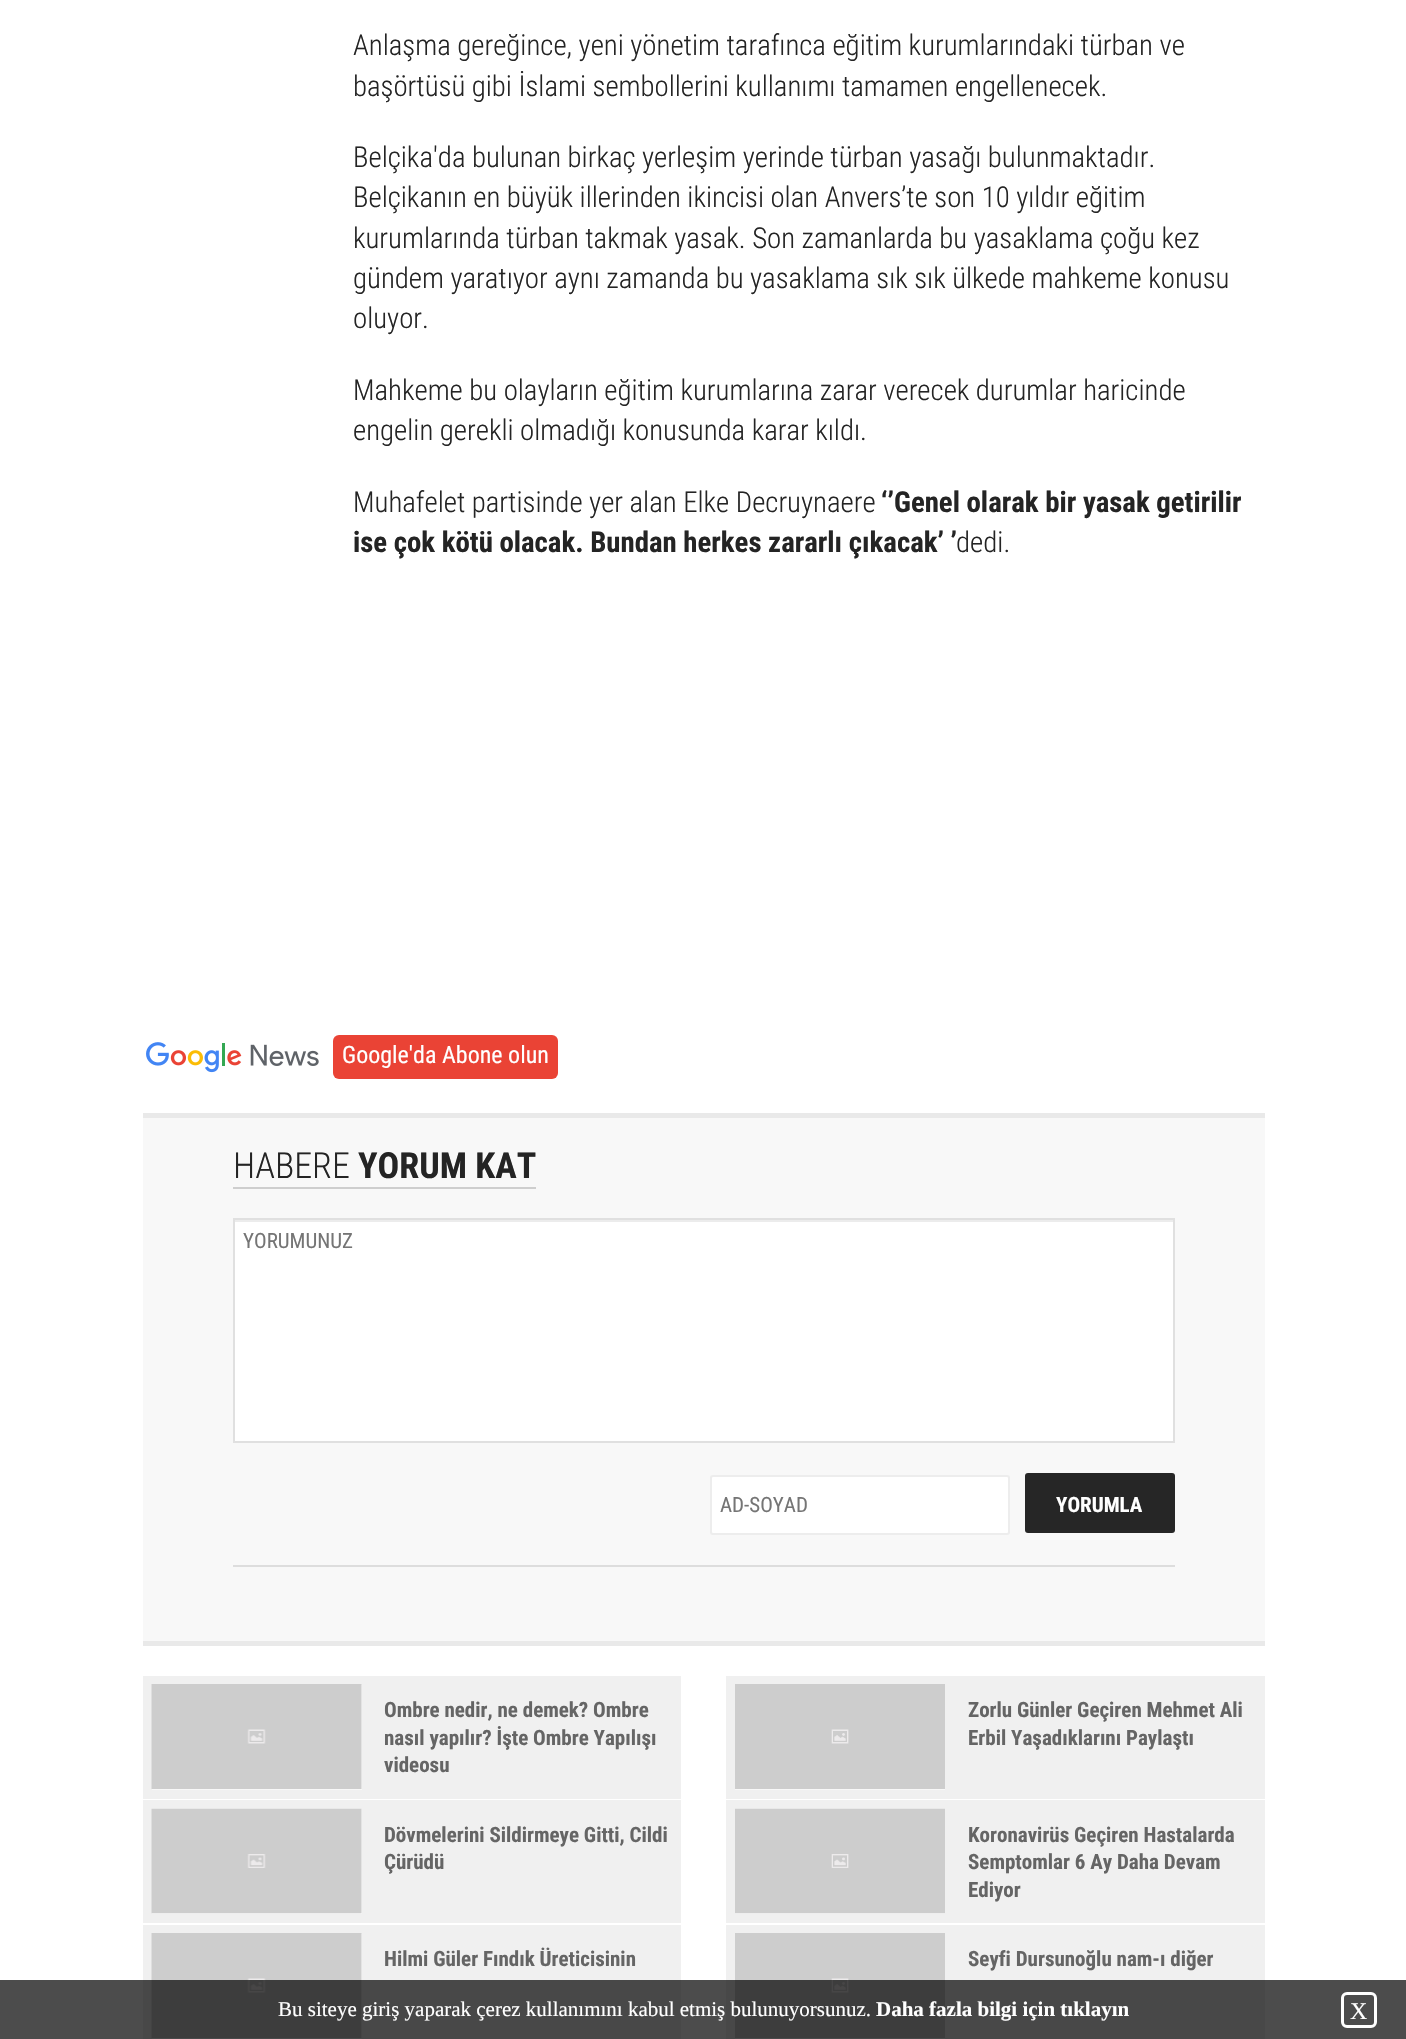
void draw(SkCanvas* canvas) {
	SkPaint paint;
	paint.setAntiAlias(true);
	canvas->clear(0xffffffff);
	SkFont f1(fontMgr->matchFamilyStyle("Roboto Condensed", SkFontStyle(300, SkFontStyle::kNormal_Width, SkFontStyle::kUpright_Slant)), 28.8);
	f1.setSubpixel(true);
	paint.setColor(0xff242424);
	canvas->drawString("Anlaşma gereğince, yeni yönetim tarafınca eğitim kurumlarındaki türban ve", 353, 55, f1, paint);
	canvas->drawString("başörtüsü gibi İslami sembollerini kullanımı tamamen engellenecek.", 353, 96, f1, paint);
	canvas->drawString("Belçika'da bulunan birkaç yerleşim yerinde türban yasağı bulunmaktadır.", 353, 167, f1, paint);
	canvas->drawString("Belçikanın en büyük illerinden ikincisi olan Anvers’te son 10 yıldır eğitim", 353, 207, f1, paint);
	canvas->drawString("kurumlarında türban takmak yasak. Son zamanlarda bu yasaklama çoğu kez", 353, 248, f1, paint);
	canvas->drawString("gündem yaratıyor aynı zamanda bu yasaklama sık sık ülkede mahkeme konusu", 353, 288, f1, paint);
	canvas->drawString("oluyor.", 353, 328, f1, paint);
	canvas->drawString("Mahkeme bu olayların eğitim kurumlarına zarar verecek durumlar haricinde", 353, 400, f1, paint);
	canvas->drawString("engelin gerekli olmadığı konusunda karar kıldı.", 353, 440, f1, paint);
	canvas->drawString("Muhafelet partisinde yer alan Elke Decruynaere", 353, 512, f1, paint);
	SkFont f2(fontMgr->matchFamilyStyle("Roboto Condensed", SkFontStyle::Bold()), 28.8);
	f2.setSubpixel(true);
	canvas->drawString("‘’Genel olarak bir yasak getirilir", 881, 512, f2, paint);
	canvas->drawString("ise çok kötü olacak. Bundan herkes zararlı çıkacak’ ’", 353, 552, f2, paint);
	canvas->drawString("dedi.", 956, 552, f1, paint);
	canvas->drawImageRect(SkImages::DeferredFromEncodedData(SkData::MakeFromFileName("img1.png")), SkRect::MakeXYWH(146, 1042, 173, 31), SkSamplingOptions());
	paint.setColor(0xffea4335);
	canvas->drawRoundRect(SkRect::MakeXYWH(333, 1035, 225, 44), 6, 6, paint);
	SkFont f3(fontMgr->matchFamilyStyle("Roboto Condensed", SkFontStyle::Normal()), 24);
	f3.setSubpixel(true);
	paint.setColor(0xffffffff);
	canvas->drawString("Google'da Abone olun", 342, 1063, f3, paint);
	paint.setColor(0xfff8f8f8);
	canvas->drawRect(SkRect::MakeXYWH(143, 1118, 1122, 523), paint);
	paint.setColor(0xffe9e9e9);
	canvas->drawRect(SkRect::MakeXYWH(143, 1113, 1122, 5), paint);
	canvas->drawRect(SkRect::MakeXYWH(143, 1641, 1122, 5), paint);
	paint.setColor(0xffcecece);
	canvas->drawRect(SkRect::MakeXYWH(233, 1187, 303, 2), paint);
	SkFont f4(fontMgr->matchFamilyStyle("Roboto Condensed", SkFontStyle(300, SkFontStyle::kNormal_Width, SkFontStyle::kUpright_Slant)), 36);
	f4.setSubpixel(true);
	paint.setColor(0xff242424);
	canvas->drawString("HABERE", 233, 1178, f4, paint);
	SkFont f5(fontMgr->matchFamilyStyle("Roboto Condensed", SkFontStyle::Bold()), 36);
	f5.setSubpixel(true);
	canvas->drawString("YORUM KAT", 358, 1178, f5, paint);
	paint.setColor(0xffffffff);
	canvas->drawRect(SkRect::MakeXYWH(235, 1222, 938, 219), paint);
	paint.setColor(0xffececec);
	canvas->drawRect(SkRect::MakeXYWH(234, 1220, 939, 2), paint);
	paint.setStroke(true);
	paint.setStrokeWidth(2);
	paint.setColor(0xffe0e0e0);
	canvas->drawRect(SkRect::MakeXYWH(234, 1219, 940, 223), paint);
	SkFont f6(fontMgr->matchFamilyStyle("Roboto Condensed", SkFontStyle::Normal()), 21);
	f6.setSubpixel(true);
	paint.setStroke(false);
	paint.setColor(0xff757575);
	canvas->drawString("YORUMUNUZ", 243, 1248, f6, paint);
	paint.setColor(0xffffffff);
	canvas->drawRoundRect(SkRect::MakeXYWH(711, 1476, 298, 58), 2, 2, paint);
	paint.setStroke(true);
	paint.setColor(0xffededed);
	canvas->drawRoundRect(SkRect::MakeXYWH(711, 1476, 298, 58), 2, 2, paint);
	paint.setStroke(false);
	paint.setColor(0xff757575);
	canvas->drawString("AD-SOYAD", 720, 1512, f6, paint);
	paint.setColor(0xff262626);
	canvas->drawRoundRect(SkRect::MakeXYWH(1025, 1473, 150, 60), 3, 3, paint);
	SkFont f7(fontMgr->matchFamilyStyle("Roboto Condensed", SkFontStyle::Bold()), 21);
	f7.setSubpixel(true);
	paint.setColor(0xffffffff);
	canvas->drawString("YORUMLA", 1056, 1512, f7, paint);
	paint.setColor(0xffdddddd);
	canvas->drawRect(SkRect::MakeXYWH(233, 1565, 942, 2), paint);
	paint.setColor(0xfff0f0f0);
	canvas->drawRect(SkRect::MakeXYWH(143, 1676, 538, 123), paint);
	paint.setColor(0xfff8f8f8);
	canvas->drawRect(SkRect::MakeXYWH(152, 1685, 210, 105), paint);
	canvas->drawImageRect(SkImages::DeferredFromEncodedData(SkData::MakeFromFileName("img2.png")), SkRect::MakeXYWH(151, 1684, 211, 105), SkSamplingOptions());
	paint.setColor(0xff656565);
	canvas->drawString("Ombre nedir, ne demek? Ombre", 384, 1717, f7, paint);
	canvas->drawString("nasıl yapılır? İşte Ombre Yapılışı", 384, 1745, f7, paint);
	canvas->drawString("videosu", 384, 1772, f7, paint);
	paint.setColor(0xfff0f0f0);
	canvas->drawRect(SkRect::MakeXYWH(726, 1676, 539, 123), paint);
	canvas->drawImageRect(SkImages::DeferredFromEncodedData(SkData::MakeFromFileName("img3.png")), SkRect::MakeXYWH(735, 1684, 210, 105), SkSamplingOptions());
	paint.setColor(0xfff8f8f8);
	canvas->drawRect(SkRect::MakeXYWH(735, 1789, 210, 1), paint);
	paint.setColor(0xff656565);
	canvas->drawString("Zorlu Günler Geçiren Mehmet Ali", 968, 1717, f7, paint);
	canvas->drawString("Erbil Yaşadıklarını Paylaştı", 968, 1745, f7, paint);
	paint.setColor(0xfff0f0f0);
	canvas->drawRect(SkRect::MakeXYWH(143, 1800, 538, 123), paint);
	paint.setColor(0xfff8f8f8);
	canvas->drawRect(SkRect::MakeXYWH(152, 1809, 210, 105), paint);
	canvas->drawImageRect(SkImages::DeferredFromEncodedData(SkData::MakeFromFileName("img4.png")), SkRect::MakeXYWH(151, 1808, 211, 106), SkSamplingOptions());
	paint.setColor(0xff656565);
	canvas->drawString("Dövmelerini Sildirmeye Gitti, Cildi", 384, 1842, f7, paint);
	canvas->drawString("Çürüdü", 384, 1869, f7, paint);
	paint.setColor(0xfff0f0f0);
	canvas->drawRect(SkRect::MakeXYWH(726, 1800, 539, 123), paint);
	paint.setColor(0xfff8f8f8);
	canvas->drawRect(SkRect::MakeXYWH(735, 1913, 210, 1), paint);
	canvas->drawImageRect(SkImages::DeferredFromEncodedData(SkData::MakeFromFileName("img5.png")), SkRect::MakeXYWH(735, 1808, 210, 106), SkSamplingOptions());
	paint.setColor(0xff656565);
	canvas->drawString("Koronavirüs Geçiren Hastalarda", 968, 1842, f7, paint);
	canvas->drawString("Semptomlar 6 Ay Daha Devam", 968, 1869, f7, paint);
	canvas->drawString("Ediyor", 968, 1897, f7, paint);
	paint.setColor(0xfff0f0f0);
	canvas->drawRect(SkRect::MakeXYWH(143, 1925, 538, 114), paint);
	paint.setColor(0xfff8f8f8);
	canvas->drawRect(SkRect::MakeXYWH(152, 1934, 210, 105), paint);
	canvas->drawImageRect(SkImages::DeferredFromEncodedData(SkData::MakeFromFileName("img2.png")), SkRect::MakeXYWH(151, 1933, 211, 105), SkSamplingOptions());
	paint.setColor(0xff656565);
	canvas->drawString("Hilmi Güler Fındık Üreticisinin", 384, 1966, f7, paint);
	paint.setColor(0xfff0f0f0);
	canvas->drawRect(SkRect::MakeXYWH(726, 1925, 539, 114), paint);
	canvas->drawImageRect(SkImages::DeferredFromEncodedData(SkData::MakeFromFileName("img3.png")), SkRect::MakeXYWH(735, 1933, 210, 105), SkSamplingOptions());
	paint.setColor(0xfff8f8f8);
	canvas->drawRect(SkRect::MakeXYWH(735, 2038, 210, 1), paint);
	paint.setColor(0xff656565);
	canvas->drawString("Seyfi Dursunoğlu nam-ı diğer", 968, 1966, f7, paint);
	paint.setColor(0xb3000000);
	canvas->drawRect(SkRect::MakeXYWH(0, 1980, 1406, 59), paint);
	SkFont f8(fontMgr->matchFamilyStyle("Liberation Serif", SkFontStyle::Normal()), 21);
	f8.setSubpixel(true);
	paint.setColor(0xffffffff);
	canvas->drawString("Bu siteye giriş yaparak çerez kullanımını kabul etmiş bulunuyorsunuz.", 278, 2016, f8, paint);
	SkFont f9(fontMgr->matchFamilyStyle("Liberation Serif", SkFontStyle::Bold()), 21);
	f9.setSubpixel(true);
	canvas->drawString("Daha fazla bilgi için tıklayın", 876, 2016, f9, paint);
	paint.setStroke(true);
	paint.setStrokeWidth(3);
	canvas->drawRoundRect(SkRect::MakeXYWH(1342.5, 1993.5, 33, 33), 4.5, 4.5, paint);
	SkFont f10(fontMgr->matchFamilyStyle("Liberation Serif", SkFontStyle::Normal()), 24);
	f10.setSubpixel(true);
	paint.setStroke(false);
	canvas->drawString("X", 1350, 2019, f10, paint);
}
